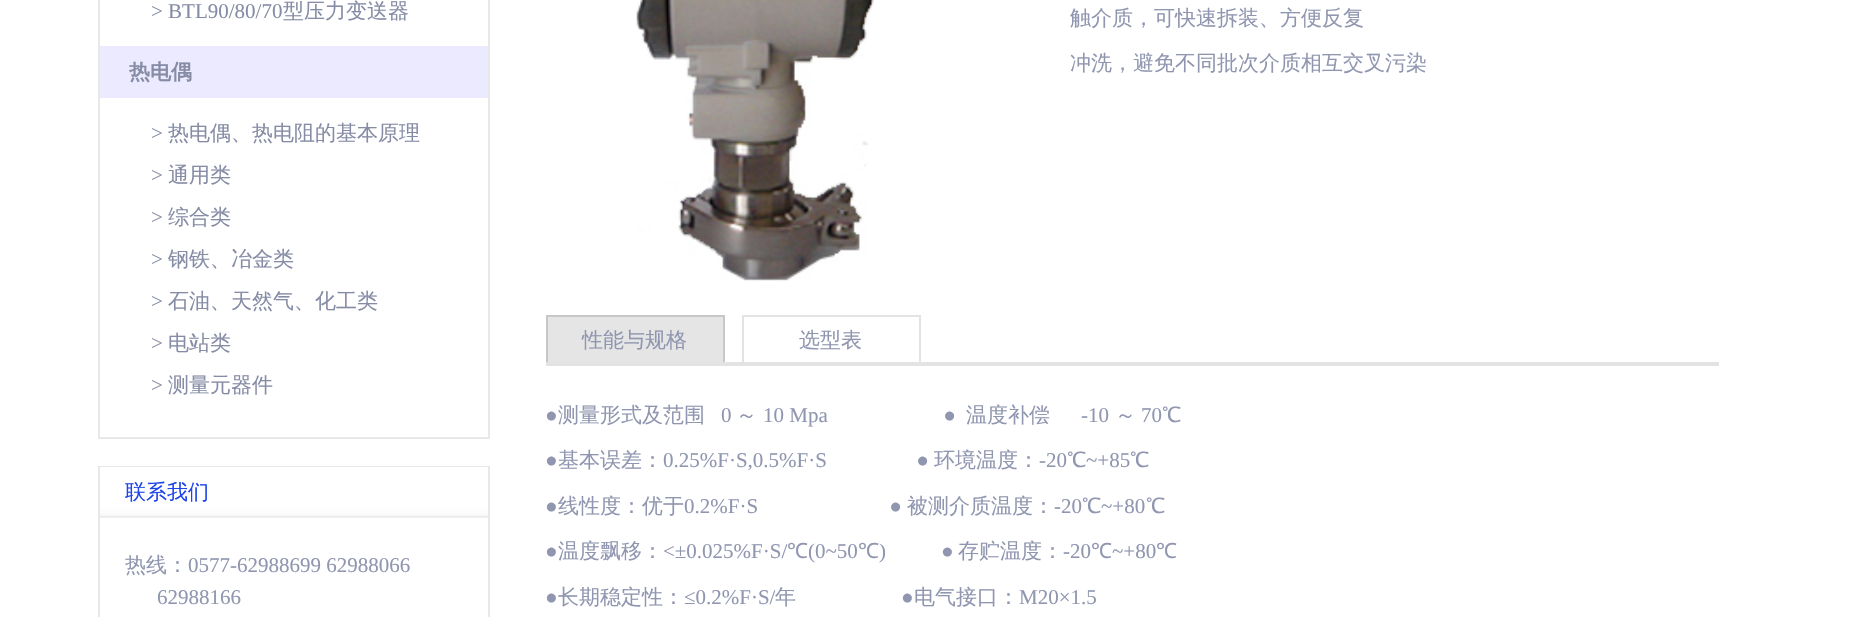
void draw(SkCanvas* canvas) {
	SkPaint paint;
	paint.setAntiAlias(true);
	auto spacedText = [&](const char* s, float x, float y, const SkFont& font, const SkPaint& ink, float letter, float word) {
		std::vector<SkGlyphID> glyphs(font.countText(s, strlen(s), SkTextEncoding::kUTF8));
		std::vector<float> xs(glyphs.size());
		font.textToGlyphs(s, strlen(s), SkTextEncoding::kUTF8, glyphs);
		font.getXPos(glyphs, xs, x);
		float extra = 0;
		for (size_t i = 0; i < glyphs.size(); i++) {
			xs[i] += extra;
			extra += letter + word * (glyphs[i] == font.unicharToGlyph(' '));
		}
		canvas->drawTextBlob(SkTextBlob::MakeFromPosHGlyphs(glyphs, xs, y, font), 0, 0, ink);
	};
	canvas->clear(0xffffffff);
	paint.setStroke(true);
	paint.setStrokeWidth(2);
	paint.setColor(0xffe8e8e8);
	canvas->drawRect(SkRect::MakeXYWH(99, -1, 390, 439), paint);
	SkFont f1(fontMgr->matchFamilyStyle("Liberation Serif", SkFontStyle::Normal()), 21);
	f1.setSubpixel(true);
	paint.setStroke(false);
	paint.setColor(0xff868ca5);
	canvas->drawString("> BTL90/80/70", 151, 18, f1, paint);
	SkFont f2(fontMgr->matchFamilyStyle("WenQuanYi Zen Hei", SkFontStyle(500, SkFontStyle::kNormal_Width, SkFontStyle::kUpright_Slant)), 21);
	f2.setSubpixel(true);
	canvas->drawString("型压力变送器", 283, 18, f2, paint);
	paint.setColor(0xffebeaff);
	canvas->drawRect(SkRect::MakeXYWH(100, 46, 388, 52), paint);
	SkFont f3(fontMgr->matchFamilyStyle("WenQuanYi Zen Hei", SkFontStyle::Bold()), 21);
	f3.setSubpixel(true);
	paint.setColor(0xff868ca5);
	canvas->drawString("热电偶", 129, 79, f3, paint);
	canvas->drawString(">", 151, 140, f1, paint);
	canvas->drawString("热电偶、热电阻的基本原理", 168, 140, f2, paint);
	canvas->drawString(">", 151, 182, f1, paint);
	canvas->drawString("通用类", 168, 182, f2, paint);
	canvas->drawString(">", 151, 224, f1, paint);
	canvas->drawString("综合类", 168, 224, f2, paint);
	canvas->drawString(">", 151, 266, f1, paint);
	canvas->drawString("钢铁、冶金类", 168, 266, f2, paint);
	canvas->drawString(">", 151, 308, f1, paint);
	canvas->drawString("石油、天然气、化工类", 168, 308, f2, paint);
	canvas->drawString(">", 151, 350, f1, paint);
	canvas->drawString("电站类", 168, 350, f2, paint);
	canvas->drawString(">", 151, 392, f1, paint);
	canvas->drawString("测量元器件", 168, 392, f2, paint);
	paint.setStroke(true);
	paint.setColor(0xffe8e8e8);
	canvas->drawRect(SkRect::MakeXYWH(99, 467, 390, 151), paint);
	canvas->drawImageRect(SkImages::DeferredFromEncodedData(SkData::MakeFromFileName("img1.png")), SkRect::MakeXYWH(100, 467, 388, 51), SkSamplingOptions());
	paint.setStroke(false);
	paint.setColor(0xff1e45eb);
	canvas->drawString("联系我们", 125, 499, f2, paint);
	paint.setColor(0xff9096b0);
	canvas->drawString("热线：", 125, 572, f2, paint);
	canvas->drawString("0577-62988699 62988066", 188, 572, f1, paint);
	canvas->drawString("62988166", 157, 604, f1, paint);
	canvas->drawImageRect(SkImages::DeferredFromEncodedData(SkData::MakeFromFileName("img2.png")), SkRect::MakeXYWH(636, 0, 238, 281), SkSamplingOptions());
	canvas->drawString("触介质，可快速拆装、方便反复", 1070, 25, f2, paint);
	canvas->drawString("冲洗，避免不同批次介质相互交叉污染", 1070, 70, f2, paint);
	paint.setColor(0xffe3e3e3);
	canvas->drawRect(SkRect::MakeXYWH(546, 362, 1173, 4), paint);
	paint.setColor(0xffe5e5e5);
	canvas->drawRect(SkRect::MakeXYWH(548, 317, 175, 45), paint);
	paint.setColor(0xffc7c7c7);
	canvas->drawRect(SkRect::MakeXYWH(546, 315, 179, 2), paint);
	canvas->drawRect(SkRect::MakeXYWH(723, 315, 2, 47), paint);
	canvas->drawRect(SkRect::MakeXYWH(546, 315, 2, 47), paint);
	paint.setColor(0xff9096b0);
	canvas->drawString("性能与规格", 582, 347, f2, paint);
	paint.setColor(0xffe3e3e3);
	canvas->drawRect(SkRect::MakeXYWH(742, 315, 179, 2), paint);
	canvas->drawRect(SkRect::MakeXYWH(919, 315, 2, 47), paint);
	canvas->drawRect(SkRect::MakeXYWH(742, 315, 2, 47), paint);
	paint.setColor(0xff9096b0);
	canvas->drawString("选型表", 799, 347, f2, paint);
	canvas->drawString("●", 545, 422, f1, paint);
	canvas->drawString("测量形式及范围", 558, 422, f2, paint);
	canvas->drawString("0", 721, 422, f1, paint);
	canvas->drawString("～", 736, 422, f2, paint);
	canvas->drawString("10 Mpa                      ●", 763, 422, f1, paint);
	canvas->drawString("温度补偿", 966, 422, f2, paint);
	canvas->drawString("-10", 1081, 422, f1, paint);
	canvas->drawString("～", 1115, 422, f2, paint);
	canvas->drawString("70", 1141, 422, f1, paint);
	canvas->drawString("℃", 1162, 422, f2, paint);
	canvas->drawString("●", 545, 467, f1, paint);
	canvas->drawString("基本误差：", 558, 467, f2, paint);
	canvas->drawString("0.25%F·S,0.5%F·S                 ●", 663, 467, f1, paint);
	canvas->drawString("环境温度：", 934, 467, f2, paint);
	canvas->drawString("-20", 1039, 467, f1, paint);
	canvas->drawString("℃", 1067, 467, f2, paint);
	canvas->drawString("~+85", 1086, 467, f1, paint);
	canvas->drawString("℃", 1130, 467, f2, paint);
	canvas->drawString("●", 545, 513, f1, paint);
	canvas->drawString("线性度：优于", 558, 513, f2, paint);
	canvas->drawString("0.2%F·S                         ●", 684, 513, f1, paint);
	canvas->drawString("被测介质温度：", 907, 513, f2, paint);
	canvas->drawString("-20", 1054, 513, f1, paint);
	canvas->drawString("℃", 1082, 513, f2, paint);
	canvas->drawString("~+80", 1101, 513, f1, paint);
	canvas->drawString("℃", 1146, 513, f2, paint);
	canvas->drawString("●", 545, 558, f1, paint);
	canvas->drawString("温度飘移：", 558, 558, f2, paint);
	canvas->drawString("<±0.025%F·S/", 663, 558, f1, paint);
	SkFont f4(fontMgr->matchFamilyStyle("Noto Sans", SkFontStyle::Normal()), 21);
	f4.setSubpixel(true);
	canvas->drawString("℃", 787, 558, f4, paint);
	canvas->drawString("(0~50", 808, 558, f1, paint);
	canvas->drawString("℃", 858, 558, f4, paint);
	spacedText(")           ●", 879, 558, f1, paint, 0, -0.25);
	canvas->drawString("存贮温度：", 958, 558, f2, paint);
	canvas->drawString("-20", 1063, 558, f1, paint);
	canvas->drawString("℃", 1091, 558, f4, paint);
	canvas->drawString("~+80", 1112, 558, f1, paint);
	canvas->drawString("℃", 1156, 558, f4, paint);
	canvas->drawString("●", 545, 604, f1, paint);
	canvas->drawString("长期稳定性：", 558, 604, f2, paint);
	canvas->drawString("≤0.2%F·S/", 684, 604, f1, paint);
	canvas->drawString("年", 775, 604, f2, paint);
	canvas->drawString("●", 901, 604, f1, paint);
	canvas->drawString("电气接口：", 914, 604, f2, paint);
	canvas->drawString("M20×1.5", 1019, 604, f1, paint);
}
